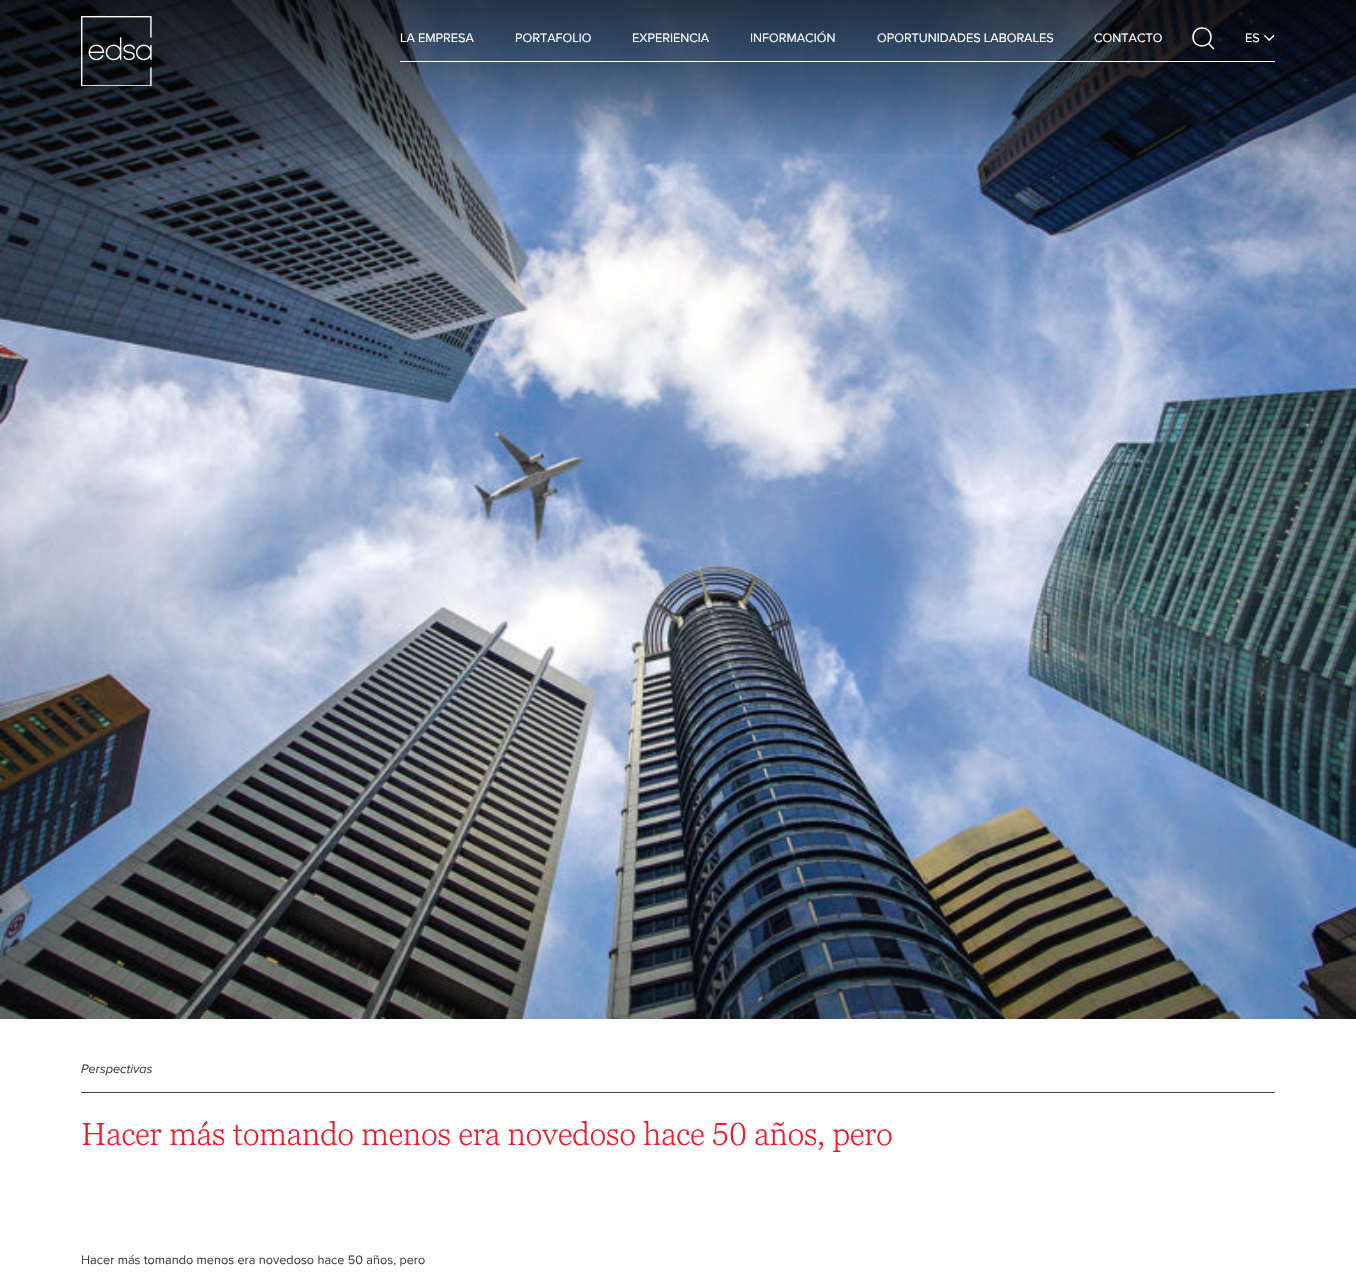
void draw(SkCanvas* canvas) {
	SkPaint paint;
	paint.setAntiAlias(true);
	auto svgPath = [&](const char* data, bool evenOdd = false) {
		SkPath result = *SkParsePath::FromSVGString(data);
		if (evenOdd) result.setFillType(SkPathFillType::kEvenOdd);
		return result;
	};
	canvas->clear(0xffffffff);
	canvas->drawImageRect(SkImages::DeferredFromEncodedData(SkData::MakeFromFileName("img3.png")), SkRect::MakeXYWH(0, 0, 1356, 1019), SkSamplingOptions());
	{
		const SkColor colors[] = {0x00000000, 0x99000000};
		const float stops[] = {0, 1};
		const SkPoint ends[] = {{678, 160}, {678, 0}};
		paint.setShader(SkGradientShader::MakeLinear(ends, colors, stops, 2, SkTileMode::kClamp));
		paint.setAlpha(255);
	}
	canvas->drawRect(SkRect::MakeXYWH(0, 0, 1356, 154), paint);
	canvas->drawImageRect(SkImages::DeferredFromEncodedData(SkData::MakeFromFileName("img1.png")), SkRect::MakeXYWH(81, 16, 71, 70), SkSamplingOptions());
	paint.setShader(nullptr);
	paint.setColor(0xffffffff);
	canvas->drawRect(SkRect::MakeXYWH(400, 61, 875, 1), paint);
	SkFont f1(fontMgr->matchFamilyStyle("Proxima Nova", SkFontStyle::Normal()), 12.7);
	f1.setSubpixel(true);
	canvas->drawString("LA EMPRESA", 400, 42, f1, paint);
	canvas->drawString("PORTAFOLIO", 515, 42, f1, paint);
	canvas->drawString("EXPERIENCIA", 632, 42, f1, paint);
	canvas->drawString("INFORMACIÓN", 750, 42, f1, paint);
	canvas->drawString("OPORTUNIDADES LABORALES", 877, 42, f1, paint);
	canvas->drawString("CONTACTO", 1094, 42, f1, paint);
	paint.setStroke(true);
	paint.setStrokeWidth(1.5);
	paint.setStrokeCap(SkPaint::kRound_Cap);
	paint.setStrokeJoin(SkPaint::kRound_Join);
	canvas->drawPath(svgPath("M1211 37C1211 49 1193 49 1193 37C1193 25 1211 25 1211 37ZM1213.5 48.5L1208.5 43.5"), paint);
	paint.setStroke(false);
	canvas->drawString("ES", 1245, 42, f1, paint);
	canvas->drawImageRect(SkImages::DeferredFromEncodedData(SkData::MakeFromFileName("img2.png")), SkRect::MakeXYWH(1264, 35, 11, 6), SkSamplingOptions());
	SkFont f2(fontMgr->matchFamilyStyle("Proxima Nova", SkFontStyle::Italic()), 12.7);
	f2.setSubpixel(true);
	paint.setColor(0xff424242);
	canvas->drawString("Perspectivas", 81, 1073, f2, paint);
	canvas->drawRect(SkRect::MakeXYWH(81, 1092, 1194, 1), paint);
	SkFont f3(fontMgr->matchFamilyStyle("Georgia", SkFontStyle(300, SkFontStyle::kNormal_Width, SkFontStyle::kUpright_Slant)), 31.75);
	f3.setSubpixel(true);
	paint.setColor(0xffed1c2a);
	canvas->drawString("Hacer más tomando menos era novedoso hace 50 años, pero", 81, 1145, f3, paint);
	paint.setColor(0xff424242);
	canvas->drawString("Hacer más tomando menos era novedoso hace 50 años, pero", 81, 1264, f1, paint);
}
